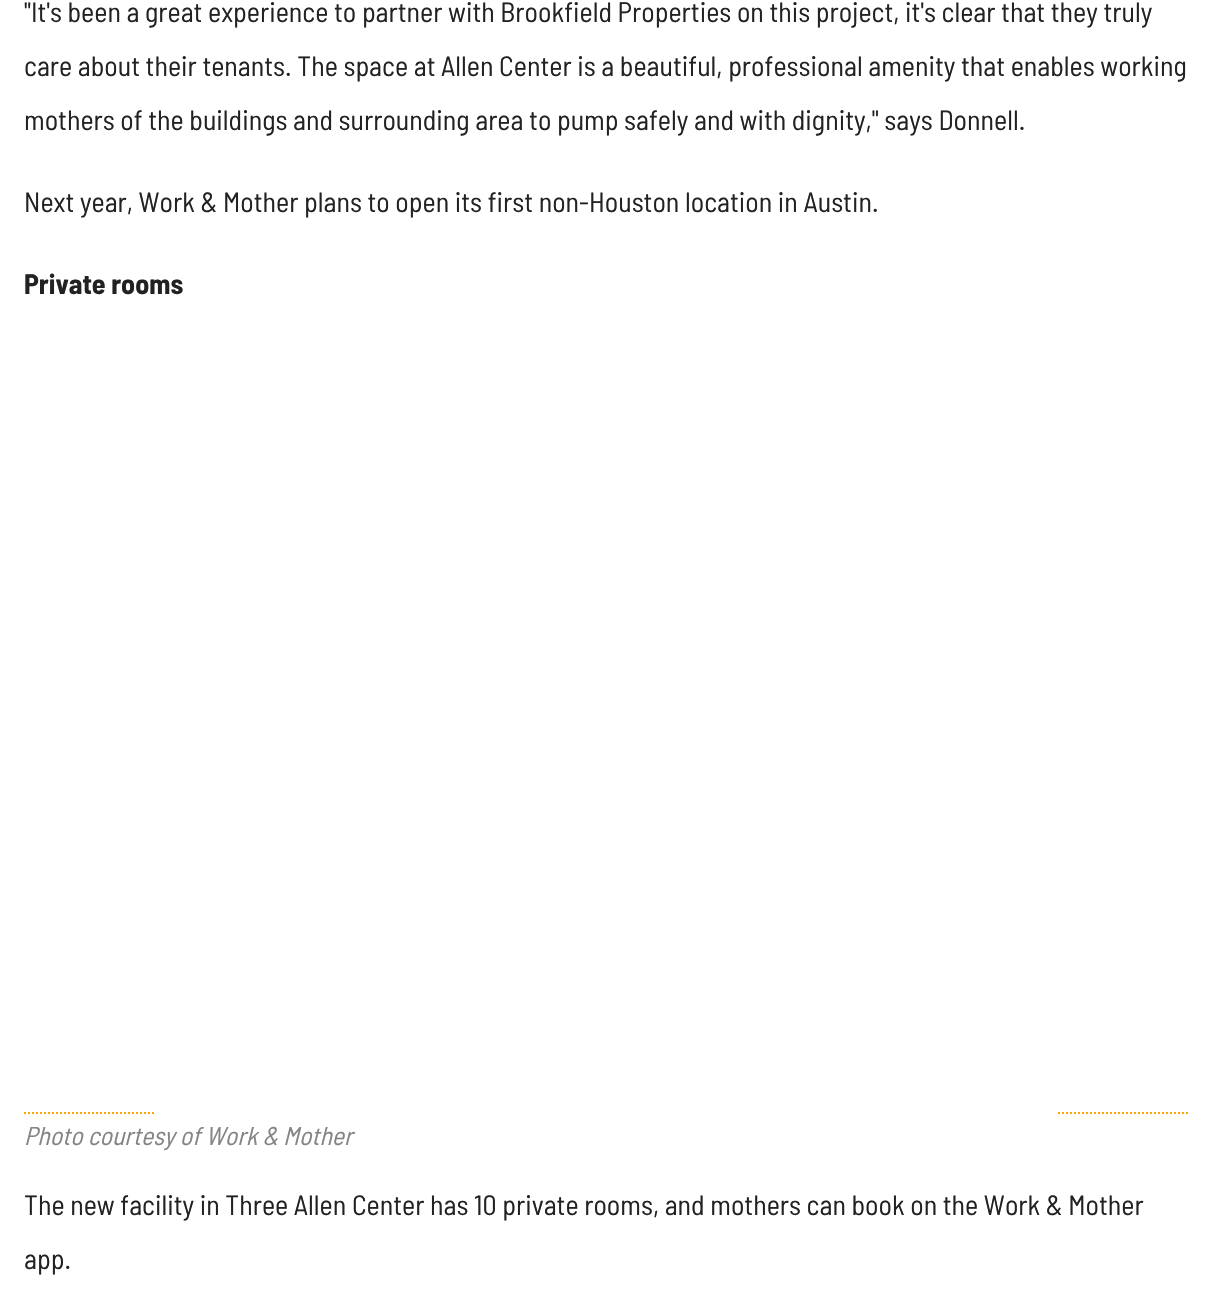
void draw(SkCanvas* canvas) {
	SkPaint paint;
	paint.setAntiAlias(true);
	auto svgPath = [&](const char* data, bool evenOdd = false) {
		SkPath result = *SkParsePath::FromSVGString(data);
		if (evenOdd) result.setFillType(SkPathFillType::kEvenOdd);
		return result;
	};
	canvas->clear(0xffffffff);
	SkFont f1(fontMgr->matchFamilyStyle("Barlow Semi Condensed", SkFontStyle::Normal()), 28);
	f1.setSubpixel(true);
	paint.setColor(0xff222222);
	canvas->drawString("\"It's been a great experience to partner with Brookfield Properties on this project, it's clear that they truly", 24, 22, f1, paint);
	canvas->drawString("care about their tenants. The space at Allen Center is a beautiful, professional amenity that enables working", 24, 76, f1, paint);
	canvas->drawString("mothers of the buildings and surrounding area to pump safely and with dignity,\" says Donnell.", 24, 130, f1, paint);
	canvas->drawString("Next year, Work & Mother plans to open its first non-Houston location in Austin.", 24, 212, f1, paint);
	SkFont f2(fontMgr->matchFamilyStyle("Barlow Semi Condensed", SkFontStyle::Bold()), 28);
	f2.setSubpixel(true);
	canvas->drawString("Private rooms", 24, 294, f2, paint);
	paint.setStroke(true);
	paint.setStrokeWidth(2);
	paint.setColor(0xffffa500);
	paint.setPathEffect(SkDashPathEffect::Make({{2, 2}}, 0));
	canvas->drawPath(svgPath("M24 1113H154"), paint);
	paint.setPathEffect(nullptr);
	paint.setPathEffect(SkDashPathEffect::Make({{2, 2}}, 0));
	canvas->drawPath(svgPath("M1058 1113H1188"), paint);
	paint.setPathEffect(nullptr);
	SkFont f3(fontMgr->matchFamilyStyle("Barlow Semi Condensed", SkFontStyle::Italic()), 25.75);
	f3.setSubpixel(true);
	paint.setStroke(false);
	paint.setColor(0xff848484);
	canvas->drawString("Photo courtesy of Work & Mother", 24, 1145, f3, paint);
	paint.setColor(0xff222222);
	canvas->drawString("The new facility in Three Allen Center has 10 private rooms, and mothers can book on the Work & Mother", 24, 1215, f1, paint);
	canvas->drawString("app.", 24, 1269, f1, paint);
}
